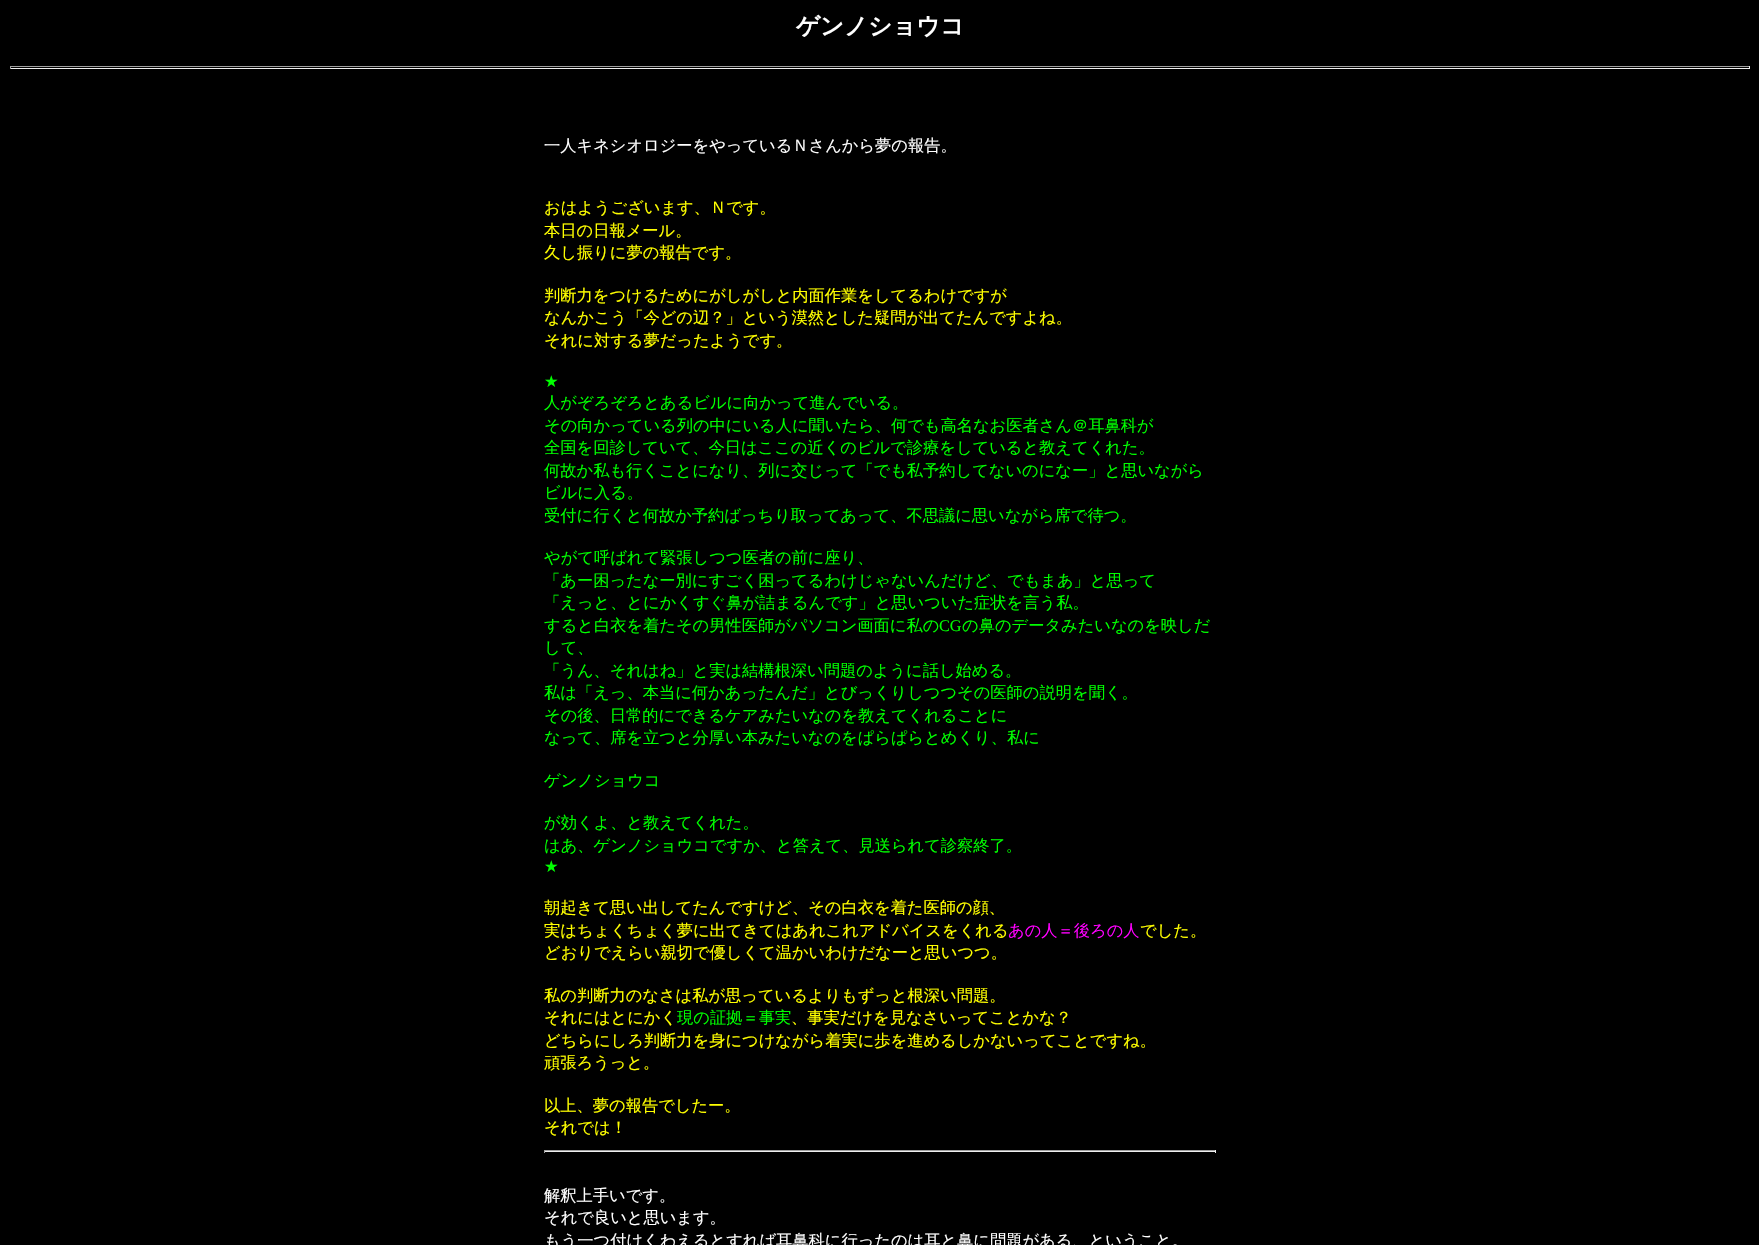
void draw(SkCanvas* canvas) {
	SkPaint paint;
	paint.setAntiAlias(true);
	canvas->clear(0xff000000);
	SkFont f1(fontMgr->matchFamilyStyle("WenQuanYi Zen Hei", SkFontStyle::Bold()), 23.5);
	f1.setSubpixel(true);
	paint.setColor(0xffffffff);
	canvas->drawString("ゲンノショウコ", 796, 34, f1, paint);
	paint.setColor(0xff9f9f9f);
	canvas->drawRect(SkRect::MakeXYWH(10, 66, 1740, 1), paint);
	paint.setColor(0xffeeeeee);
	canvas->drawRect(SkRect::MakeXYWH(1749, 66, 1, 3), paint);
	canvas->drawRect(SkRect::MakeXYWH(10, 68, 1740, 1), paint);
	paint.setColor(0xff9f9f9f);
	canvas->drawRect(SkRect::MakeXYWH(10, 66, 1, 3), paint);
	SkFont f2(fontMgr->matchFamilyStyle("WenQuanYi Zen Hei", SkFontStyle(500, SkFontStyle::kNormal_Width, SkFontStyle::kUpright_Slant)), 16.25);
	f2.setSubpixel(true);
	paint.setColor(0xffffffff);
	canvas->drawString("一人キネシオロジーをやっているＮさんから夢の報告。", 544, 151, f2, paint);
	paint.setColor(0xffffff00);
	canvas->drawString("おはようございます、Ｎです。", 544, 213, f2, paint);
	canvas->drawString("本日の日報メール。", 544, 236, f2, paint);
	canvas->drawString("久し振りに夢の報告です。", 544, 258, f2, paint);
	canvas->drawString("判断力をつけるためにがしがしと内面作業をしてるわけですが", 544, 301, f2, paint);
	canvas->drawString("なんかこう「今どの辺？」という漠然とした疑問が出てたんですよね。", 544, 323, f2, paint);
	canvas->drawString("それに対する夢だったようです。", 544, 346, f2, paint);
	SkFont f3(fontMgr->matchFamilyStyle("DejaVu Sans", SkFontStyle::Normal()), 16.25);
	f3.setSubpixel(true);
	paint.setColor(0xff00ff00);
	canvas->drawString("★", 544, 387, f3, paint);
	canvas->drawString("人がぞろぞろとあるビルに向かって進んでいる。", 544, 408, f2, paint);
	canvas->drawString("その向かっている列の中にいる人に聞いたら、何でも高名なお医者さん＠耳鼻科が", 544, 431, f2, paint);
	canvas->drawString("全国を回診していて、今日はここの近くのビルで診療をしていると教えてくれた。", 544, 453, f2, paint);
	canvas->drawString("何故か私も行くことになり、列に交じって「でも私予約してないのになー」と思いながら", 544, 476, f2, paint);
	canvas->drawString("ビルに入る。", 544, 498, f2, paint);
	canvas->drawString("受付に行くと何故か予約ばっちり取ってあって、不思議に思いながら席で待つ。", 544, 521, f2, paint);
	canvas->drawString("やがて呼ばれて緊張しつつ医者の前に座り、", 544, 563, f2, paint);
	canvas->drawString("「あー困ったなー別にすごく困ってるわけじゃないんだけど、でもまあ」と思って", 544, 586, f2, paint);
	canvas->drawString("「えっと、とにかくすぐ鼻が詰まるんです」と思いついた症状を言う私。", 544, 608, f2, paint);
	canvas->drawString("すると白衣を着たその男性医師がパソコン画面に私の", 544, 631, f2, paint);
	SkFont f4(fontMgr->matchFamilyStyle("Liberation Serif", SkFontStyle::Normal()), 16.25);
	f4.setSubpixel(true);
	canvas->drawString("CG", 939, 631, f4, paint);
	canvas->drawString("の鼻のデータみたいなのを映しだ", 962, 631, f2, paint);
	canvas->drawString("して、", 544, 653, f2, paint);
	canvas->drawString("「うん、それはね」と実は結構根深い問題のように話し始める。", 544, 676, f2, paint);
	canvas->drawString("私は「えっ、本当に何かあったんだ」とびっくりしつつその医師の説明を聞く。", 544, 698, f2, paint);
	canvas->drawString("その後、日常的にできるケアみたいなのを教えてくれることに", 544, 721, f2, paint);
	canvas->drawString("なって、席を立つと分厚い本みたいなのをぱらぱらとめくり、私に", 544, 743, f2, paint);
	canvas->drawString("ゲンノショウコ", 544, 786, f2, paint);
	canvas->drawString("が効くよ、と教えてくれた。", 544, 828, f2, paint);
	canvas->drawString("はあ、ゲンノショウコですか、と答えて、見送られて診察終了。", 544, 851, f2, paint);
	canvas->drawString("★", 544, 872, f3, paint);
	paint.setColor(0xffffff00);
	canvas->drawString("朝起きて思い出してたんですけど、その白衣を着た医師の顔、", 544, 913, f2, paint);
	canvas->drawString("実はちょくちょく夢に出てきてはあれこれアドバイスをくれる", 544, 936, f2, paint);
	paint.setColor(0xffff00ff);
	canvas->drawString("あの人＝後ろの人", 1008, 936, f2, paint);
	paint.setColor(0xffffff00);
	canvas->drawString("でした。", 1140, 936, f2, paint);
	canvas->drawString("どおりでえらい親切で優しくて温かいわけだなーと思いつつ。", 544, 958, f2, paint);
	canvas->drawString("私の判断力のなさは私が思っているよりもずっと根深い問題。", 544, 1001, f2, paint);
	canvas->drawString("それにはとにかく", 544, 1023, f2, paint);
	paint.setColor(0xff00ff00);
	canvas->drawString("現の証拠＝事実", 677, 1023, f2, paint);
	paint.setColor(0xffffff00);
	canvas->drawString("、事実だけを見なさいってことかな？", 791, 1023, f2, paint);
	canvas->drawString("どちらにしろ判断力を身につけながら着実に歩を進めるしかないってことですね。", 544, 1046, f2, paint);
	canvas->drawString("頑張ろうっと。", 544, 1068, f2, paint);
	canvas->drawString("以上、夢の報告でしたー。", 544, 1111, f2, paint);
	canvas->drawString("それでは！", 544, 1133, f2, paint);
	paint.setColor(0xff9f9f9f);
	canvas->drawRect(SkRect::MakeXYWH(544, 1150, 672, 1), paint);
	paint.setColor(0xffeeeeee);
	canvas->drawRect(SkRect::MakeXYWH(1215, 1150, 1, 3), paint);
	canvas->drawRect(SkRect::MakeXYWH(544, 1151, 672, 1), paint);
	paint.setColor(0xff9f9f9f);
	canvas->drawRect(SkRect::MakeXYWH(544, 1150, 1, 3), paint);
	paint.setColor(0xffffffff);
	canvas->drawString("解釈上手いです。", 544, 1201, f2, paint);
	canvas->drawString("それで良いと思います。", 544, 1223, f2, paint);
	canvas->drawString("もう一つ付けくわえるとすれば耳鼻科に行ったのは耳と鼻に問題がある、ということ。", 544, 1246, f2, paint);
}
